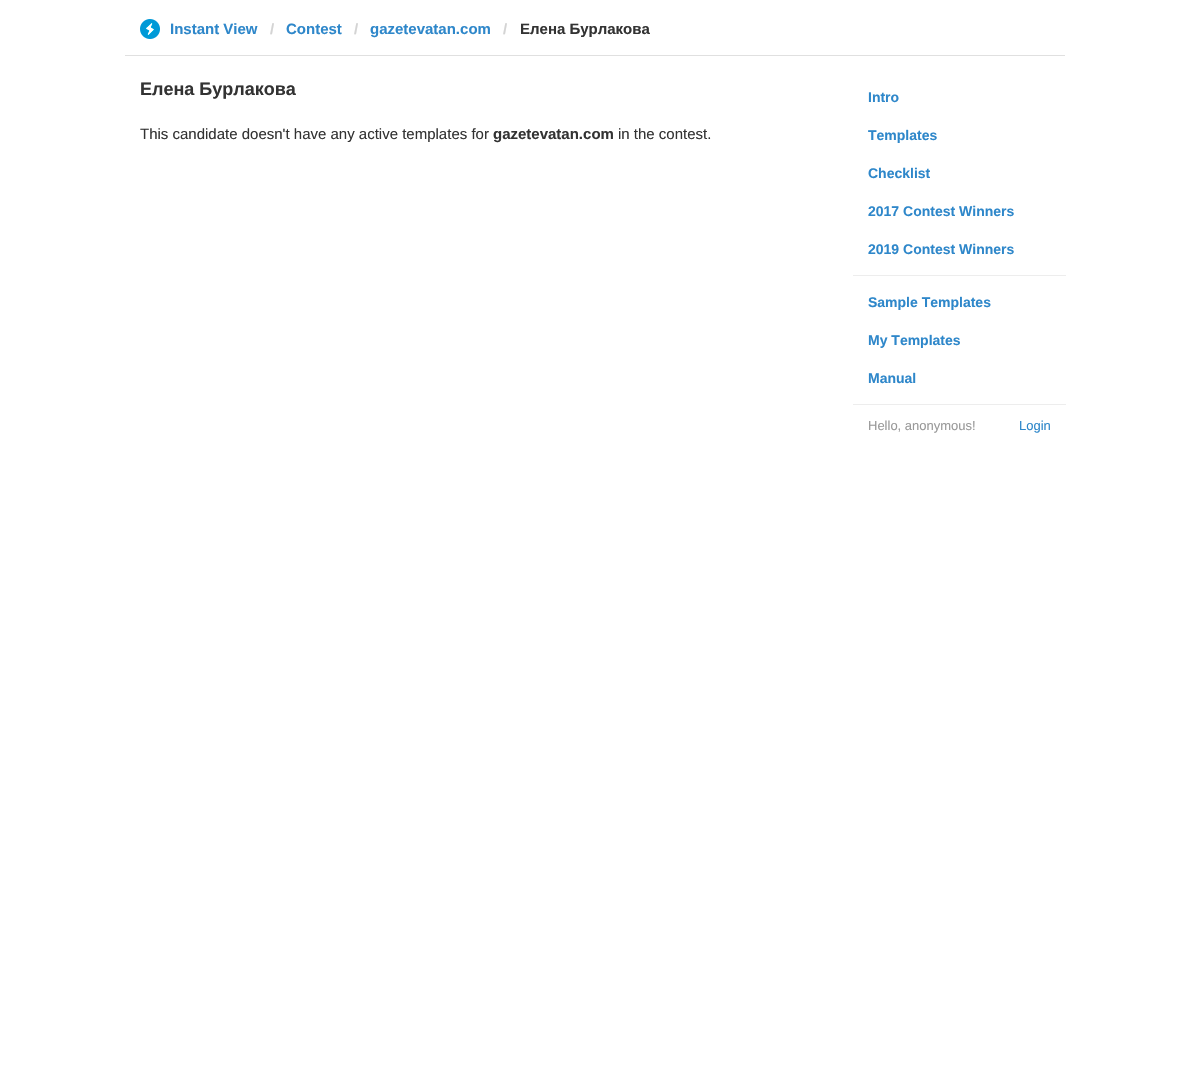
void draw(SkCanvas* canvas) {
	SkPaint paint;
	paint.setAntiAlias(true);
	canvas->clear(0xffffffff);
	paint.setColor(0xffe0e0e0);
	canvas->drawRect(SkRect::MakeXYWH(125, 55, 940, 1), paint);
	canvas->drawImageRect(SkImages::DeferredFromEncodedData(SkData::MakeFromFileName("img1.png")), SkRect::MakeXYWH(140, 19, 20, 20), SkSamplingOptions());
	SkFont f1(fontMgr->matchFamilyStyle("Liberation Sans", SkFontStyle::Bold()), 15);
	f1.setSubpixel(true);
	paint.setColor(0xff2e87ca);
	canvas->drawString("Instant View", 170, 34, f1, paint);
	paint.setColor(0xffd4d4d4);
	canvas->drawString("/", 270, 34, f1, paint);
	paint.setColor(0xff2e87ca);
	canvas->drawString("Contest", 286, 34, f1, paint);
	paint.setColor(0xffd4d4d4);
	canvas->drawString("/", 354, 34, f1, paint);
	paint.setColor(0xff2e87ca);
	canvas->drawString("gazetevatan.com", 370, 34, f1, paint);
	paint.setColor(0xffd4d4d4);
	canvas->drawString("/", 503, 34, f1, paint);
	paint.setColor(0xff333333);
	canvas->drawString("Елена Бурлакова", 520, 34, f1, paint);
	SkFont f2(fontMgr->matchFamilyStyle("Liberation Sans", SkFontStyle::Bold()), 18);
	f2.setSubpixel(true);
	canvas->drawString("Елена Бурлакова", 140, 95, f2, paint);
	SkFont f3(fontMgr->matchFamilyStyle("Liberation Sans", SkFontStyle::Normal()), 15);
	f3.setSubpixel(true);
	canvas->drawString("This candidate doesn't have any active templates for", 140, 139, f3, paint);
	canvas->drawString("gazetevatan.com", 493, 139, f1, paint);
	canvas->drawString("in the contest.", 618, 139, f3, paint);
	SkFont f4(fontMgr->matchFamilyStyle("Liberation Sans", SkFontStyle::Bold()), 14);
	f4.setSubpixel(true);
	paint.setColor(0xff2e87ca);
	canvas->drawString("Intro", 868, 102, f4, paint);
	canvas->drawString("Templates", 868, 140, f4, paint);
	canvas->drawString("Checklist", 868, 178, f4, paint);
	canvas->drawString("2017 Contest Winners", 868, 216, f4, paint);
	canvas->drawString("2019 Contest Winners", 868, 254, f4, paint);
	paint.setColor(0xffededed);
	canvas->drawRect(SkRect::MakeXYWH(853, 275, 213, 1), paint);
	paint.setColor(0xff2e87ca);
	canvas->drawString("Sample Templates", 868, 307, f4, paint);
	canvas->drawString("My Templates", 868, 345, f4, paint);
	canvas->drawString("Manual", 868, 383, f4, paint);
	paint.setColor(0xffededed);
	canvas->drawRect(SkRect::MakeXYWH(853, 404, 213, 1), paint);
	SkFont f5(fontMgr->matchFamilyStyle("Liberation Sans", SkFontStyle::Normal()), 13);
	f5.setSubpixel(true);
	paint.setColor(0xff999999);
	canvas->drawString("Hello, anonymous!", 868, 430, f5, paint);
	paint.setColor(0xff2e87ca);
	canvas->drawString("Login", 1019, 430, f5, paint);
}
